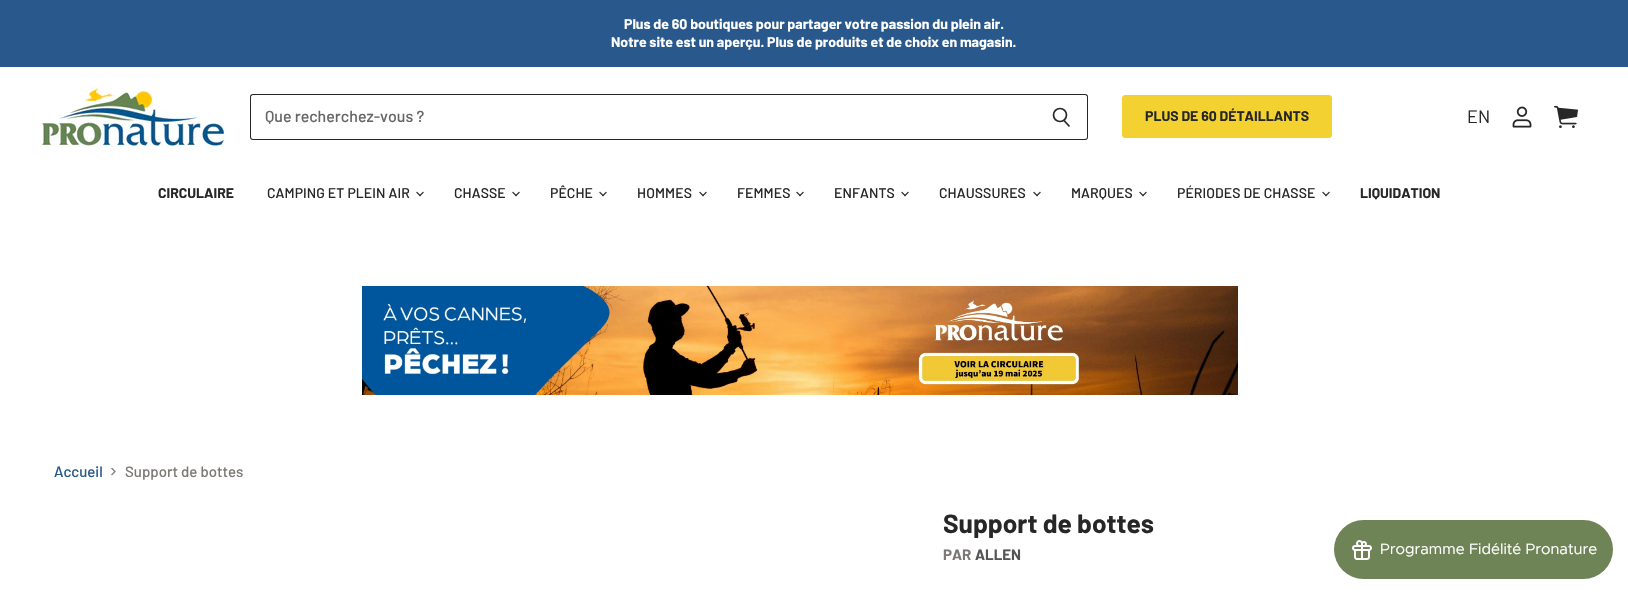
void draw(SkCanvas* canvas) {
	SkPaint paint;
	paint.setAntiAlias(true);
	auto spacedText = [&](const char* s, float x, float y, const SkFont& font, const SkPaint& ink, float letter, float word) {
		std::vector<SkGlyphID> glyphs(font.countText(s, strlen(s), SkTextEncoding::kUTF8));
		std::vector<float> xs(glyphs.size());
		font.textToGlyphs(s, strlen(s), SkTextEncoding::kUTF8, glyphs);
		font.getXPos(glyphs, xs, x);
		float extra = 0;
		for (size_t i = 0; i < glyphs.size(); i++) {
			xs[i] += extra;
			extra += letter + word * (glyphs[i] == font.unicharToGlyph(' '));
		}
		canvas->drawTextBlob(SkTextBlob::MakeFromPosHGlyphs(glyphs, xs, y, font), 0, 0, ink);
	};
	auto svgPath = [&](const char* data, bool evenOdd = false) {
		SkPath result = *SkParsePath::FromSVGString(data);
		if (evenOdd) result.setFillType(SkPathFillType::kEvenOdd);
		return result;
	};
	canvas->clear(0xffffffff);
	paint.setColor(0xff29588c);
	canvas->drawRect(SkRect::MakeXYWH(0, 0, 1628, 67), paint);
	SkFont f1(fontMgr->matchFamilyStyle("Barlow", SkFontStyle::Bold()), 14.05);
	f1.setSubpixel(true);
	paint.setColor(0xffffffff);
	canvas->drawString("Plus de 60 boutiques pour partager votre passion du plein air.", 624, 29, f1, paint);
	canvas->drawString("Notre site est un aperçu. Plus de produits et de choix en magasin.", 611, 47, f1, paint);
	canvas->drawImageRect(SkImages::DeferredFromEncodedData(SkData::MakeFromFileName("img1.png")), SkRect::MakeXYWH(40, 87, 185, 60), SkSamplingOptions());
	paint.setColor(0xff272727);
	canvas->drawPath(svgPath("M253 94H1035V140H253C251 140 250 139 250 137V97C250 95 251 94 253 94ZM253 95H1035V139H253C252 139 251 138 251 137V97C251 96 252 95 253 95Z", true), paint);
	SkFont f2(fontMgr->matchFamilyStyle("Barlow", SkFontStyle(500, SkFontStyle::kNormal_Width, SkFontStyle::kUpright_Slant)), 16);
	f2.setSubpixel(true);
	paint.setColor(0xff666666);
	canvas->drawString("Que recherchez-vous ?", 265, 122, f2, paint);
	paint.setColor(0xff272727);
	canvas->drawPath(svgPath("M1035 94H1085C1087 94 1088 95 1088 97V137C1088 139 1087 140 1085 140H1035ZM1035 95H1085C1086 95 1087 96 1087 97V137C1087 138 1086 139 1085 139H1035Z", true), paint);
	paint.setStroke(true);
	paint.setStrokeWidth(1.7);
	canvas->drawPath(svgPath("M1069.5 126.5L1064 120.5"), paint);
	canvas->drawCircle(1060, 115, 6.5, paint);
	paint.setStroke(false);
	paint.setColor(0xfff3d130);
	canvas->drawRoundRect(SkRect::MakeXYWH(1122.5, 95.5, 209, 42), 2.5, 2.5, paint);
	paint.setStroke(true);
	paint.setStrokeWidth(1);
	canvas->drawRoundRect(SkRect::MakeXYWH(1122.5, 95.5, 209, 42), 2.5, 2.5, paint);
	paint.setStroke(false);
	paint.setColor(0xff272727);
	canvas->drawString("PLUS DE 60 DÉTAILLANTS", 1145, 121, f1, paint);
	SkFont f3(fontMgr->matchFamilyStyle("Barlow", SkFontStyle::Normal()), 18);
	f3.setSubpixel(true);
	canvas->drawString("EN", 1467, 123, f3, paint);
	canvas->drawImageRect(SkImages::DeferredFromEncodedData(SkData::MakeFromFileName("img2.png")), SkRect::MakeXYWH(1512, 106, 20, 22), SkSamplingOptions());
	canvas->drawImageRect(SkImages::DeferredFromEncodedData(SkData::MakeFromFileName("img3.png")), SkRect::MakeXYWH(1554, 105, 24, 24), SkSamplingOptions());
	SkFont f4(fontMgr->matchFamilyStyle("Barlow", SkFontStyle::Bold()), 14);
	f4.setSubpixel(true);
	canvas->drawString("CIRCULAIRE", 158, 198, f4, paint);
	SkFont f5(fontMgr->matchFamilyStyle("Barlow", SkFontStyle(500, SkFontStyle::kNormal_Width, SkFontStyle::kUpright_Slant)), 14);
	f5.setSubpixel(true);
	spacedText("CAMPING ET PLEIN AIR", 267, 198, f5, paint, 0.1, 0);
	canvas->drawImageRect(SkImages::DeferredFromEncodedData(SkData::MakeFromFileName("img4.png")), SkRect::MakeXYWH(416, 191, 8, 6), SkSamplingOptions());
	spacedText("CHASSE", 454, 198, f5, paint, 0.1, 0);
	canvas->drawImageRect(SkImages::DeferredFromEncodedData(SkData::MakeFromFileName("img4.png")), SkRect::MakeXYWH(512, 191, 8, 6), SkSamplingOptions());
	spacedText("PÊCHE", 550, 198, f5, paint, 0.1, 0);
	canvas->drawImageRect(SkImages::DeferredFromEncodedData(SkData::MakeFromFileName("img4.png")), SkRect::MakeXYWH(599, 191, 8, 6), SkSamplingOptions());
	spacedText("HOMMES", 637, 198, f5, paint, 0.1, 0);
	canvas->drawImageRect(SkImages::DeferredFromEncodedData(SkData::MakeFromFileName("img4.png")), SkRect::MakeXYWH(699, 191, 8, 6), SkSamplingOptions());
	spacedText("FEMMES", 737, 198, f5, paint, 0.1, 0);
	canvas->drawImageRect(SkImages::DeferredFromEncodedData(SkData::MakeFromFileName("img4.png")), SkRect::MakeXYWH(796, 191, 8, 6), SkSamplingOptions());
	spacedText("ENFANTS", 834, 198, f5, paint, 0.1, 0);
	canvas->drawImageRect(SkImages::DeferredFromEncodedData(SkData::MakeFromFileName("img4.png")), SkRect::MakeXYWH(901, 191, 8, 6), SkSamplingOptions());
	spacedText("CHAUSSURES", 939, 198, f5, paint, 0.1, 0);
	canvas->drawImageRect(SkImages::DeferredFromEncodedData(SkData::MakeFromFileName("img4.png")), SkRect::MakeXYWH(1033, 191, 8, 6), SkSamplingOptions());
	spacedText("MARQUES", 1071, 198, f5, paint, 0.1, 0);
	canvas->drawImageRect(SkImages::DeferredFromEncodedData(SkData::MakeFromFileName("img4.png")), SkRect::MakeXYWH(1139, 191, 8, 6), SkSamplingOptions());
	spacedText("PÉRIODES DE CHASSE", 1177, 198, f5, paint, 0.1, 0);
	canvas->drawImageRect(SkImages::DeferredFromEncodedData(SkData::MakeFromFileName("img4.png")), SkRect::MakeXYWH(1322, 191, 8, 6), SkSamplingOptions());
	canvas->drawString("LIQUIDATION", 1360, 198, f4, paint);
	canvas->drawImageRect(SkImages::DeferredFromEncodedData(SkData::MakeFromFileName("img5.png")), SkRect::MakeXYWH(362, 286, 876, 109), SkSamplingOptions());
	SkFont f6(fontMgr->matchFamilyStyle("Barlow", SkFontStyle(500, SkFontStyle::kNormal_Width, SkFontStyle::kUpright_Slant)), 15);
	f6.setSubpixel(true);
	paint.setColor(0xff29588c);
	canvas->drawString("Accueil", 54, 477, f6, paint);
	canvas->save();
	canvas->clipPath(svgPath("M111 476V468H116V476Z"), true);
	paint.setStroke(true);
	paint.setStrokeWidth(1.2);
	paint.setColor(0xff7c7873);
	canvas->drawPath(svgPath("M111.5 475L115 471.5L111.5 468"), paint);
	canvas->restore();
	paint.setStroke(false);
	canvas->drawString("Support de bottes", 125, 477, f6, paint);
	SkFont f7(fontMgr->matchFamilyStyle("Barlow", SkFontStyle::Bold()), 26.25);
	f7.setSubpixel(true);
	paint.setColor(0xff272727);
	canvas->drawString("Support de bottes", 943, 533, f7, paint);
	SkFont f8(fontMgr->matchFamilyStyle("Barlow", SkFontStyle::Bold()), 15);
	f8.setSubpixel(true);
	paint.setColor(0xff7c7873);
	canvas->drawString("PAR", 943, 560, f8, paint);
	paint.setColor(0xff555555);
	canvas->drawString("ALLEN", 975, 560, f8, paint);
	paint.setColor(0xff6f8456);
	canvas->drawRoundRect(SkRect::MakeXYWH(1334, 520, 279, 59), 29.5, 29.5, paint);
	canvas->drawImageRect(SkImages::DeferredFromEncodedData(SkData::MakeFromFileName("img6.png")), SkRect::MakeXYWH(1352, 540, 20, 20), SkSamplingOptions());
	SkFont f9(fontMgr->matchFamilyStyle("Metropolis", SkFontStyle::Normal()), 15);
	f9.setSubpixel(true);
	paint.setColor(0xffffffff);
	canvas->drawString("Programme Fidélité Pronature", 1380, 554, f9, paint);
}
